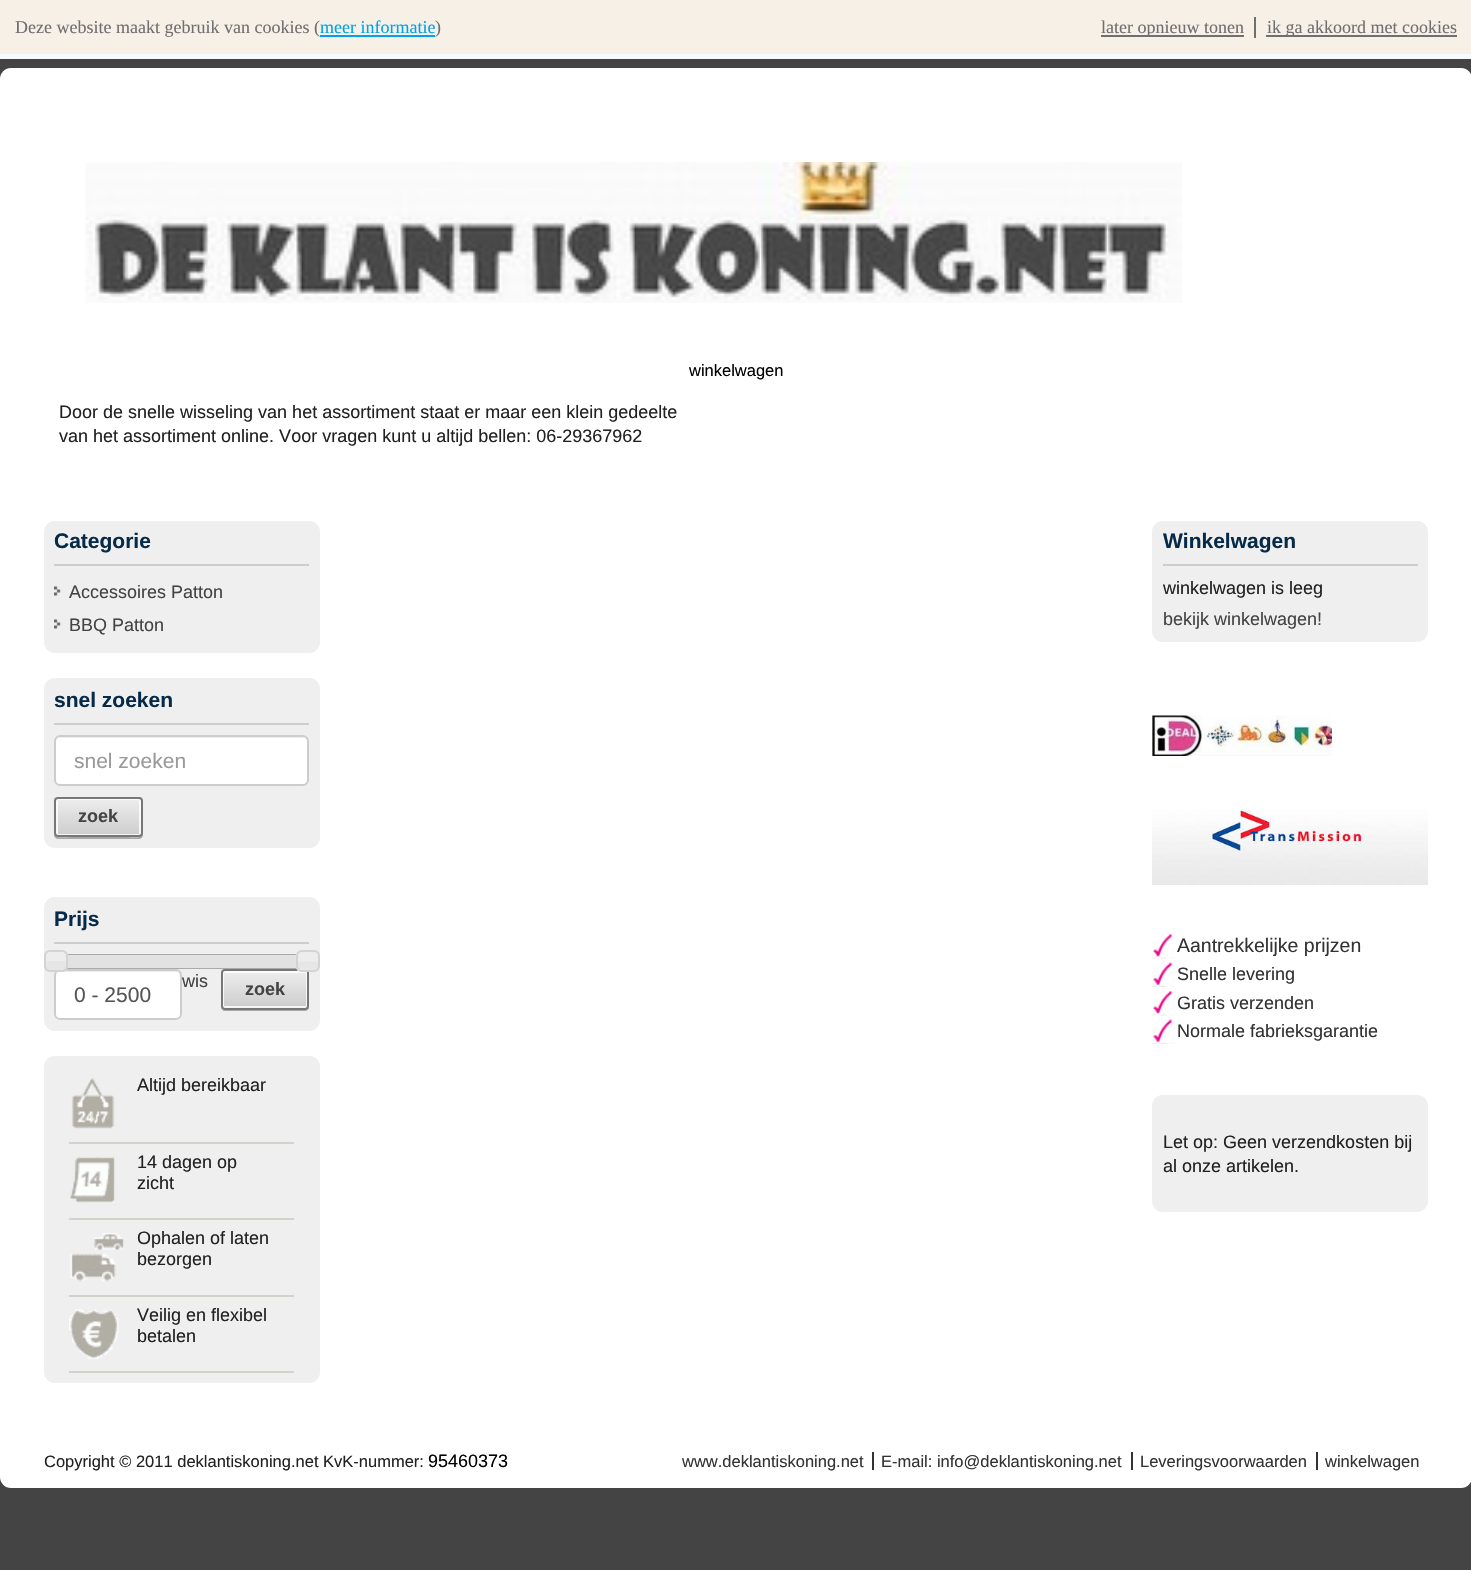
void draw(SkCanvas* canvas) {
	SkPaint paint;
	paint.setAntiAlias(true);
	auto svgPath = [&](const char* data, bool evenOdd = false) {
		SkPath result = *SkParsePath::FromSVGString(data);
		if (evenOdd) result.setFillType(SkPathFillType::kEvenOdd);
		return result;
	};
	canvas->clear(0xff444444);
	paint.setColor(0xfff6f0e7);
	canvas->drawRect(SkRect::MakeXYWH(0, 0, 1471, 54), paint);
	paint.setColor(0xfff6fbff);
	canvas->drawRect(SkRect::MakeXYWH(0, 54, 1471, 5), paint);
	SkFont f1(fontMgr->matchFamilyStyle("Liberation Serif", SkFontStyle::Normal()), 18);
	f1.setSubpixel(true);
	paint.setColor(0xff6f6f6f);
	canvas->drawString("Deze website maakt gebruik van cookies (", 15, 33, f1, paint);
	paint.setColor(0xff00a2e8);
	canvas->drawString("meer informatie", 320, 33, f1, paint);
	canvas->drawRect(SkRect::MakeXYWH(320, 35, 115, 2), paint);
	paint.setColor(0xff6f6f6f);
	canvas->drawString(")", 435, 33, f1, paint);
	canvas->drawRect(SkRect::MakeXYWH(1101, 35, 143, 2), paint);
	canvas->drawString("later opnieuw tonen", 1101, 33, f1, paint);
	canvas->drawRect(SkRect::MakeXYWH(1266, 35, 191, 2), paint);
	canvas->drawString("ik ga akkoord met cookies", 1267, 33, f1, paint);
	canvas->drawRect(SkRect::MakeXYWH(1254, 17, 2, 21), paint);
	paint.setColor(0xffffffff);
	canvas->drawRoundRect(SkRect::MakeXYWH(0, 68, 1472, 1420), 11, 11, paint);
	canvas->drawImageRect(SkImages::DeferredFromEncodedData(SkData::MakeFromFileName("img1.png")), SkRect::MakeXYWH(85, 162, 1097, 141), SkSamplingOptions());
	SkFont f2(fontMgr->matchFamilyStyle("Liberation Sans", SkFontStyle::Normal()), 16.5);
	f2.setSubpixel(true);
	paint.setColor(0xff000000);
	canvas->drawString("winkelwagen", 689, 376, f2, paint);
	SkFont f3(fontMgr->matchFamilyStyle("Liberation Sans", SkFontStyle::Normal()), 18);
	f3.setSubpixel(true);
	paint.setColor(0xff222222);
	canvas->drawString("Door de snelle wisseling van het assortiment staat er maar een klein gedeelte", 59, 418, f3, paint);
	canvas->drawString("van het assortiment online. Voor vragen kunt u altijd bellen: 06-29367962", 59, 442, f3, paint);
	paint.setColor(0xffefefef);
	canvas->drawRoundRect(SkRect::MakeXYWH(44, 521, 276, 132), 11, 11, paint);
	paint.setColor(0xffcdcdcd);
	canvas->drawRect(SkRect::MakeXYWH(54, 564, 255, 2), paint);
	SkFont f4(fontMgr->matchFamilyStyle("Liberation Sans", SkFontStyle::Bold()), 21);
	f4.setSubpixel(true);
	paint.setColor(0xff072a48);
	canvas->drawString("Categorie", 54, 548, f4, paint);
	canvas->drawImageRect(SkImages::DeferredFromEncodedData(SkData::MakeFromFileName("img2.png")), SkRect::MakeXYWH(54, 586, 7, 10), SkSamplingOptions());
	paint.setColor(0xff444444);
	canvas->drawString("Accessoires Patton", 69, 598, f3, paint);
	canvas->drawImageRect(SkImages::DeferredFromEncodedData(SkData::MakeFromFileName("img2.png")), SkRect::MakeXYWH(54, 619, 7, 10), SkSamplingOptions());
	canvas->drawString("BBQ Patton", 69, 631, f3, paint);
	paint.setColor(0xffefefef);
	canvas->drawRoundRect(SkRect::MakeXYWH(44, 678, 276, 170), 11, 11, paint);
	paint.setColor(0xffcdcdcd);
	canvas->drawRect(SkRect::MakeXYWH(54, 723, 255, 2), paint);
	paint.setColor(0xff072a48);
	canvas->drawString("snel zoeken", 54, 707, f4, paint);
	paint.setColor(0xffffffff);
	canvas->drawRoundRect(SkRect::MakeXYWH(54, 735, 255, 51), 6, 6, paint);
	paint.setColor(0xffececec);
	canvas->drawPath(svgPath("M60 738H303C305 738 308 740 308 742C308 739 306 737 303 737H61C58 737 56 739 56 742C56 740 58 738 60 738Z"), paint);
	paint.setStroke(true);
	paint.setStrokeWidth(2);
	paint.setColor(0xffcccccc);
	canvas->drawRoundRect(SkRect::MakeXYWH(55, 736, 253, 49), 5, 5, paint);
	SkFont f5(fontMgr->matchFamilyStyle("Liberation Sans", SkFontStyle::Normal()), 21);
	f5.setSubpixel(true);
	paint.setStroke(false);
	paint.setColor(0xff999999);
	canvas->drawString("snel zoeken", 74, 768, f5, paint);
	paint.setColor(0xffa7a7a7);
	canvas->drawPath(svgPath("M54 833V835C54 837 56 839 58 839H139C141 839 143 837 143 835V802L142 800V828C142 840 140 837 125 837H71C64 837 54 839 54 833Z"), paint);
	canvas->save();
	canvas->clipPath(svgPath("M58 797H139C141 797 143 799 143 801V833C143 835 141 837 139 837H58C56 837 54 835 54 833V801C54 799 56 797 58 797Z"), true);
	{
		const SkColor colors[] = {0xffeeeeee, 0xffcccccc};
		const float stops[] = {0, 1};
		const SkPoint ends[] = {{98, 798}, {98, 836}};
		paint.setShader(SkGradientShader::MakeLinear(ends, colors, stops, 2, SkTileMode::kClamp));
		paint.setAlpha(255);
	}
	canvas->drawRect(SkRect::MakeXYWH(54, 798, 89, 38), paint);
	canvas->restore();
	paint.setStroke(true);
	paint.setShader(nullptr);
	paint.setColor(0xccffffff);
	canvas->drawRoundRect(SkRect::MakeXYWH(57, 799, 83, 36), 1, 1, paint);
	paint.setColor(0xff777777);
	canvas->drawRoundRect(SkRect::MakeXYWH(55, 798, 87, 38), 3, 3, paint);
	SkFont f6(fontMgr->matchFamilyStyle("Liberation Sans", SkFontStyle::Bold()), 18);
	f6.setSubpixel(true);
	paint.setStroke(false);
	paint.setColor(0xff444444);
	canvas->drawString("zoek", 78, 822, f6, paint);
	paint.setColor(0xffefefef);
	canvas->drawRoundRect(SkRect::MakeXYWH(44, 897, 276, 134), 11, 11, paint);
	paint.setColor(0xffcdcdcd);
	canvas->drawRect(SkRect::MakeXYWH(54, 942, 255, 2), paint);
	paint.setColor(0xff072a48);
	canvas->drawString("Prijs", 54, 926, f4, paint);
	paint.setStroke(true);
	paint.setColor(0xffaaaaaa);
	canvas->drawRect(SkRect::MakeXYWH(55, 955, 253, 13), paint);
	paint.setStroke(false);
	paint.setColor(0xffe2e2e2);
	canvas->drawRect(SkRect::MakeXYWH(67, 955, 229, 13), paint);
	paint.setColor(0xffffffff);
	canvas->drawRoundRect(SkRect::MakeXYWH(54, 969, 128, 51), 6, 6, paint);
	paint.setColor(0xffececec);
	canvas->drawPath(svgPath("M60 972H176C178 972 180 974 180 976C180 973 178 971 175 971H61C58 971 56 973 56 976C56 974 58 972 60 972Z"), paint);
	paint.setStroke(true);
	paint.setColor(0xffcccccc);
	canvas->drawRoundRect(SkRect::MakeXYWH(55, 970, 126, 49), 5, 5, paint);
	paint.setStroke(false);
	paint.setColor(0xffe6e6e6);
	canvas->drawRoundRect(SkRect::MakeXYWH(44, 950, 24, 22), 6, 6, paint);
	canvas->drawImageRect(SkImages::DeferredFromEncodedData(SkData::MakeFromFileName("img3.png")), SkRect::MakeXYWH(44, 950, 23, 11), SkSamplingOptions());
	paint.setStroke(true);
	paint.setColor(0xffd3d3d3);
	canvas->drawRoundRect(SkRect::MakeXYWH(45, 951, 22, 20), 5, 5, paint);
	paint.setStroke(false);
	paint.setColor(0xffa7a7a7);
	canvas->drawPath(svgPath("M221 1008C222 1010 223 1011 225 1011H305C307 1011 309 1009 309 1007V1006C309 1008 307 1010 305 1010H224C223 1010 222 1009 221 1008Z"), paint);
	canvas->save();
	canvas->clipPath(svgPath("M225 969H305C307 969 309 971 309 973V1006C309 1008 307 1010 305 1010H225C223 1010 221 1008 221 1006V973C221 971 223 969 225 969Z"), true);
	{
		const SkColor colors[] = {0xffeeeeee, 0xffcccccc};
		const float stops[] = {0, 1};
		const SkPoint ends[] = {{265, 971}, {265, 1008}};
		paint.setShader(SkGradientShader::MakeLinear(ends, colors, stops, 2, SkTileMode::kClamp));
		paint.setAlpha(255);
	}
	canvas->drawRect(SkRect::MakeXYWH(221, 971, 88, 37), paint);
	canvas->restore();
	paint.setStroke(true);
	paint.setShader(nullptr);
	paint.setColor(0xccffffff);
	canvas->drawRoundRect(SkRect::MakeXYWH(223, 972, 84, 35), 1, 1, paint);
	paint.setColor(0xff777777);
	canvas->drawRoundRect(SkRect::MakeXYWH(222, 970, 86, 39), 3, 3, paint);
	canvas->drawImageRect(SkImages::DeferredFromEncodedData(SkData::MakeFromFileName("img4.png")), SkRect::MakeXYWH(295, 950, 24, 22), SkSamplingOptions());
	paint.setColor(0xffd3d3d3);
	canvas->drawRoundRect(SkRect::MakeXYWH(297, 951, 22, 20), 5, 5, paint);
	paint.setStroke(false);
	paint.setColor(0xff444444);
	canvas->drawString("wis", 182, 987, f3, paint);
	paint.setColor(0xff555555);
	canvas->drawString("0 - 2500", 74, 1002, f5, paint);
	paint.setColor(0xff444444);
	canvas->drawString("zoek", 245, 995, f6, paint);
	paint.setColor(0xffefefef);
	canvas->drawRoundRect(SkRect::MakeXYWH(44, 1056, 276, 327), 11, 11, paint);
	paint.setColor(0xffd4d2cc);
	canvas->drawRect(SkRect::MakeXYWH(69, 1142, 225, 2), paint);
	canvas->drawImageRect(SkImages::DeferredFromEncodedData(SkData::MakeFromFileName("img5.png")), SkRect::MakeXYWH(71, 1078, 44, 51), SkSamplingOptions());
	paint.setColor(0xff222222);
	canvas->drawString("Altijd bereikbaar", 137, 1091, f3, paint);
	paint.setColor(0xffd4d2cc);
	canvas->drawRect(SkRect::MakeXYWH(69, 1218, 225, 2), paint);
	canvas->drawImageRect(SkImages::DeferredFromEncodedData(SkData::MakeFromFileName("img6.png")), SkRect::MakeXYWH(70, 1156, 45, 47), SkSamplingOptions());
	paint.setColor(0xff222222);
	canvas->drawString("14 dagen op", 137, 1168, f3, paint);
	canvas->drawString("zicht", 137, 1189, f3, paint);
	paint.setColor(0xffd4d2cc);
	canvas->drawRect(SkRect::MakeXYWH(69, 1295, 225, 2), paint);
	canvas->drawImageRect(SkImages::DeferredFromEncodedData(SkData::MakeFromFileName("img7.png")), SkRect::MakeXYWH(70, 1233, 54, 49), SkSamplingOptions());
	paint.setColor(0xff222222);
	canvas->drawString("Ophalen of laten", 137, 1244, f3, paint);
	canvas->drawString("bezorgen", 137, 1265, f3, paint);
	paint.setColor(0xffd4d2cc);
	canvas->drawRect(SkRect::MakeXYWH(69, 1371, 225, 2), paint);
	canvas->drawImageRect(SkImages::DeferredFromEncodedData(SkData::MakeFromFileName("img8.png")), SkRect::MakeXYWH(69, 1309, 50, 50), SkSamplingOptions());
	paint.setColor(0xff222222);
	canvas->drawString("Veilig en flexibel", 137, 1321, f3, paint);
	canvas->drawString("betalen", 137, 1342, f3, paint);
	paint.setColor(0xffefefef);
	canvas->drawRoundRect(SkRect::MakeXYWH(1152, 521, 276, 121), 11, 11, paint);
	paint.setColor(0xffcdcdcd);
	canvas->drawRect(SkRect::MakeXYWH(1163, 564, 255, 2), paint);
	paint.setColor(0xff072a48);
	canvas->drawString("Winkelwagen", 1163, 548, f4, paint);
	paint.setColor(0xff222222);
	canvas->drawString("winkelwagen is leeg", 1163, 594, f3, paint);
	paint.setColor(0xff444444);
	canvas->drawString("bekijk winkelwagen!", 1163, 625, f3, paint);
	canvas->drawImageRect(SkImages::DeferredFromEncodedData(SkData::MakeFromFileName("img9.png")), SkRect::MakeXYWH(1152, 715, 180, 41), SkSamplingOptions());
	canvas->drawImageRect(SkImages::DeferredFromEncodedData(SkData::MakeFromFileName("img10.png")), SkRect::MakeXYWH(1152, 809, 276, 76), SkSamplingOptions());
	canvas->drawImageRect(SkImages::DeferredFromEncodedData(SkData::MakeFromFileName("img11.png")), SkRect::MakeXYWH(1152, 933, 23, 26), SkSamplingOptions());
	SkFont f7(fontMgr->matchFamilyStyle("Liberation Sans", SkFontStyle::Normal()), 19.5);
	f7.setSubpixel(true);
	paint.setColor(0xff333333);
	canvas->drawString("Aantrekkelijke prijzen", 1177, 952, f7, paint);
	canvas->drawImageRect(SkImages::DeferredFromEncodedData(SkData::MakeFromFileName("img12.png")), SkRect::MakeXYWH(1152, 961, 23, 26), SkSamplingOptions());
	canvas->drawString("Snelle levering", 1177, 980, f3, paint);
	canvas->drawImageRect(SkImages::DeferredFromEncodedData(SkData::MakeFromFileName("img11.png")), SkRect::MakeXYWH(1152, 990, 23, 26), SkSamplingOptions());
	canvas->drawString("Gratis verzenden", 1177, 1009, f3, paint);
	canvas->drawImageRect(SkImages::DeferredFromEncodedData(SkData::MakeFromFileName("img12.png")), SkRect::MakeXYWH(1152, 1018, 23, 26), SkSamplingOptions());
	canvas->drawString("Normale fabrieksgarantie", 1177, 1037, f3, paint);
	paint.setColor(0xffefefef);
	canvas->drawRoundRect(SkRect::MakeXYWH(1152, 1095, 276, 117), 11, 11, paint);
	paint.setColor(0xff222222);
	canvas->drawString("Let op: Geen verzendkosten bij", 1163, 1148, f3, paint);
	canvas->drawString("al onze artikelen.", 1163, 1172, f3, paint);
	canvas->drawString("Copyright © 2011 deklantiskoning.net KvK-nummer:", 44, 1467, f2, paint);
	paint.setColor(0xff000000);
	canvas->drawString("95460373", 428, 1467, f3, paint);
	paint.setColor(0xff333333);
	canvas->drawString("www.deklantiskoning.net", 682, 1467, f2, paint);
	canvas->drawString("E-mail: info@deklantiskoning.net", 881, 1467, f2, paint);
	canvas->drawRect(SkRect::MakeXYWH(872, 1452, 2, 18), paint);
	canvas->drawString("Leveringsvoorwaarden", 1140, 1467, f2, paint);
	canvas->drawRect(SkRect::MakeXYWH(1131, 1452, 2, 18), paint);
	canvas->drawString("winkelwagen", 1325, 1467, f2, paint);
	canvas->drawRect(SkRect::MakeXYWH(1316, 1452, 2, 18), paint);
}
